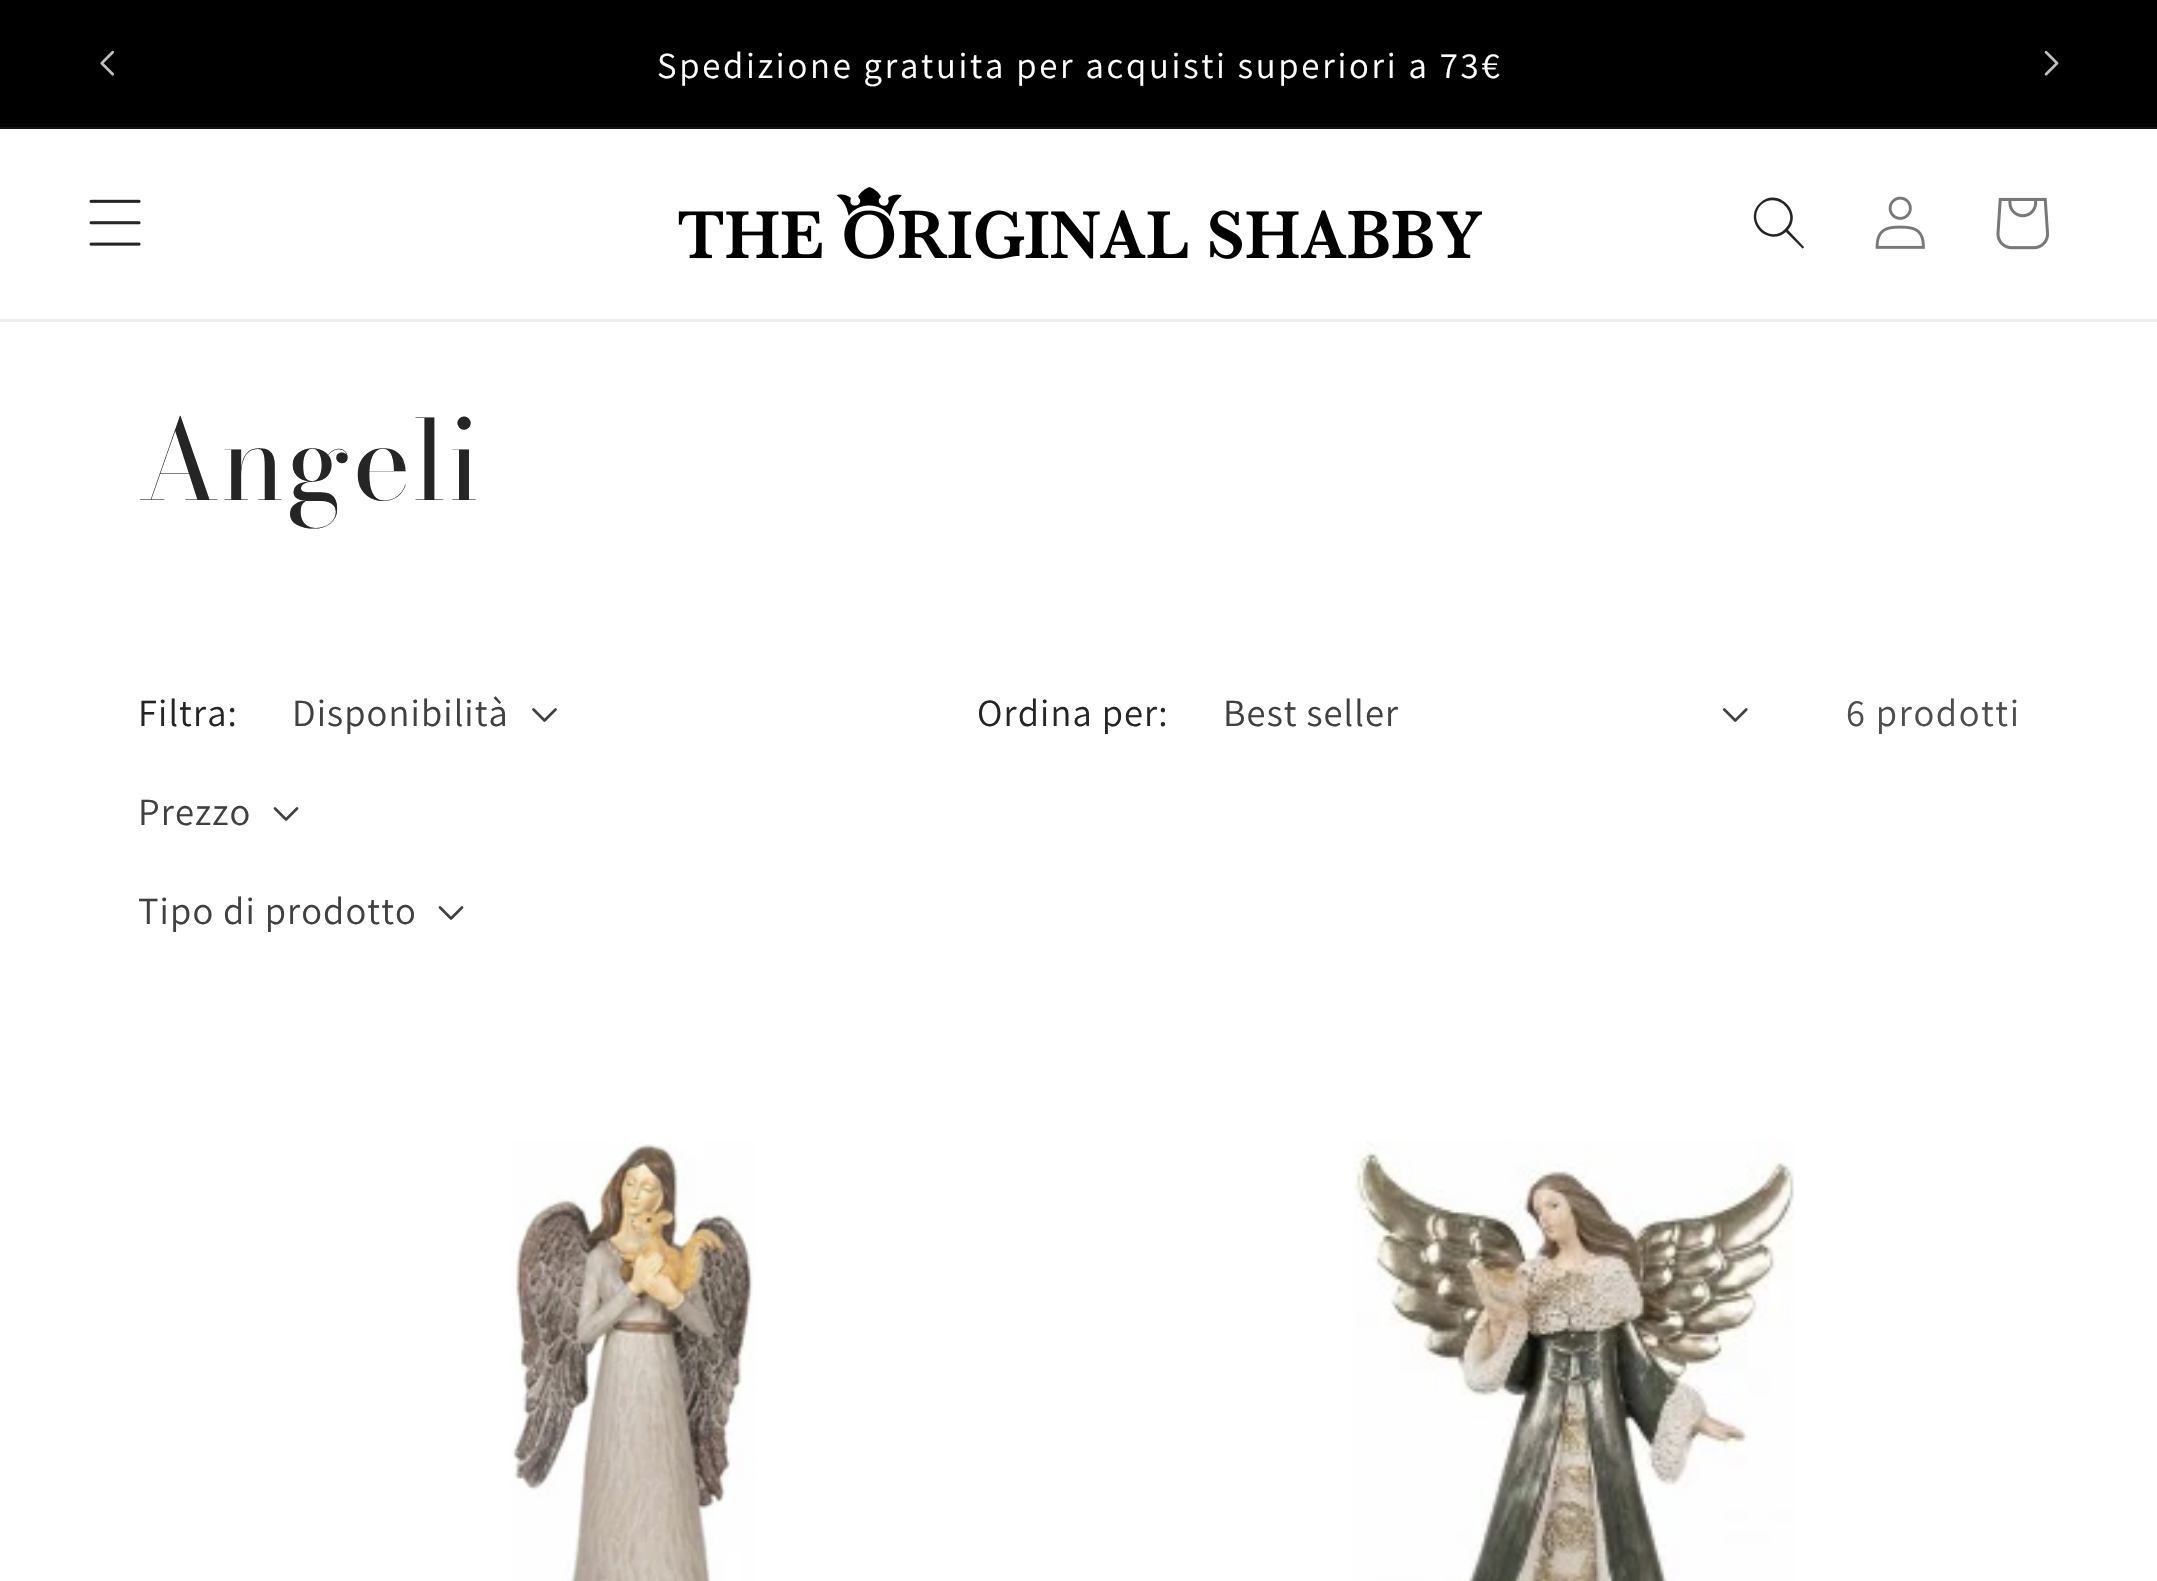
void draw(SkCanvas* canvas) {
	SkPaint paint;
	paint.setAntiAlias(true);
	auto spacedText = [&](const char* s, float x, float y, const SkFont& font, const SkPaint& ink, float letter, float word) {
		std::vector<SkGlyphID> glyphs(font.countText(s, strlen(s), SkTextEncoding::kUTF8));
		std::vector<float> xs(glyphs.size());
		font.textToGlyphs(s, strlen(s), SkTextEncoding::kUTF8, glyphs);
		font.getXPos(glyphs, xs, x);
		float extra = 0;
		for (size_t i = 0; i < glyphs.size(); i++) {
			xs[i] += extra;
			extra += letter + word * (glyphs[i] == font.unicharToGlyph(' '));
		}
		canvas->drawTextBlob(SkTextBlob::MakeFromPosHGlyphs(glyphs, xs, y, font), 0, 0, ink);
	};
	auto svgPath = [&](const char* data, bool evenOdd = false) {
		SkPath result = *SkParsePath::FromSVGString(data);
		if (evenOdd) result.setFillType(SkPathFillType::kEvenOdd);
		return result;
	};
	canvas->clear(0xffffffff);
	paint.setColor(0xff000000);
	canvas->drawRect(SkRect::MakeXYWH(0, 0, 2157, 127), paint);
	paint.setColor(0xff141414);
	canvas->drawRect(SkRect::MakeXYWH(0, 127, 2157, 2), paint);
	canvas->drawImageRect(SkImages::DeferredFromEncodedData(SkData::MakeFromFileName("img1.png")), SkRect::MakeXYWH(100, 50, 15, 26), SkSamplingOptions());
	SkFont f1(fontMgr->matchFamilyStyle("Assistant", SkFontStyle::Normal()), 36.7);
	f1.setSubpixel(true);
	paint.setColor(0xffffffff);
	spacedText("Spedizione gratuita per acquisti superiori a 73€", 657, 78, f1, paint, 2.75, 0);
	canvas->drawImageRect(SkImages::DeferredFromEncodedData(SkData::MakeFromFileName("img2.png")), SkRect::MakeXYWH(2044, 50, 15, 26), SkSamplingOptions());
	paint.setColor(0xffeeeeee);
	canvas->drawRect(SkRect::MakeXYWH(0, 319, 2157, 3), paint);
	canvas->drawImageRect(SkImages::DeferredFromEncodedData(SkData::MakeFromFileName("img3.png")), SkRect::MakeXYWH(89, 199, 52, 47), SkSamplingOptions());
	canvas->drawImageRect(SkImages::DeferredFromEncodedData(SkData::MakeFromFileName("img4.png")), SkRect::MakeXYWH(678, 187, 804, 72), SkSamplingOptions());
	paint.setColor(0xff252525);
	canvas->drawPath(svgPath("M1785 229C1770 245 1746 221 1761 205C1777 190 1801 214 1785 229M1786 232C1767 248 1742 220 1760 203C1777 186 1804 212 1788 230L1804 247C1804 248 1802 249 1802 248Z", true), paint);
	canvas->drawImageRect(SkImages::DeferredFromEncodedData(SkData::MakeFromFileName("img5.png")), SkRect::MakeXYWH(1875, 196, 50, 53), SkSamplingOptions());
	canvas->drawImageRect(SkImages::DeferredFromEncodedData(SkData::MakeFromFileName("img6.png")), SkRect::MakeXYWH(1996, 197, 54, 53), SkSamplingOptions());
	SkFont f2(fontMgr->matchFamilyStyle("Bodoni Moda", SkFontStyle::Normal()), 110);
	f2.setSubpixel(true);
	spacedText("Angeli", 138, 500, f2, paint, 1.6, 0);
	SkFont f3(fontMgr->matchFamilyStyle("Assistant", SkFontStyle::Normal()), 38.5);
	f3.setSubpixel(true);
	spacedText("Filtra:", 138, 726, f3, paint, 1.1, 0);
	paint.setColor(0xff404040);
	spacedText("Disponibilità", 292, 726, f3, paint, 1.1, 0);
	canvas->drawImageRect(SkImages::DeferredFromEncodedData(SkData::MakeFromFileName("img7.png")), SkRect::MakeXYWH(532, 708, 25, 14), SkSamplingOptions());
	spacedText("Prezzo", 138, 825, f3, paint, 1.1, 0);
	canvas->drawImageRect(SkImages::DeferredFromEncodedData(SkData::MakeFromFileName("img8.png")), SkRect::MakeXYWH(273, 807, 26, 14), SkSamplingOptions());
	spacedText("Tipo di prodotto", 138, 924, f3, paint, 1.1, 0);
	canvas->drawImageRect(SkImages::DeferredFromEncodedData(SkData::MakeFromFileName("img8.png")), SkRect::MakeXYWH(438, 906, 26, 14), SkSamplingOptions());
	paint.setColor(0xff252525);
	spacedText("Ordina per:", 977, 726, f3, paint, 1.1, 0);
	paint.setColor(0xff404040);
	spacedText("Best seller", 1223, 726, f3, paint, 1.1, 0);
	canvas->drawImageRect(SkImages::DeferredFromEncodedData(SkData::MakeFromFileName("img9.png")), SkRect::MakeXYWH(1722, 708, 26, 14), SkSamplingOptions());
	paint.setColor(0xff4d4d4d);
	spacedText("6 prodotti", 1846, 726, f3, paint, 1.6, 0);
	canvas->drawImageRect(SkImages::DeferredFromEncodedData(SkData::MakeFromFileName("img10.png")), SkRect::MakeXYWH(511, 1141, 245, 440), SkSamplingOptions());
	canvas->drawImageRect(SkImages::DeferredFromEncodedData(SkData::MakeFromFileName("img11.png")), SkRect::MakeXYWH(1353, 1141, 441, 440), SkSamplingOptions());
}
